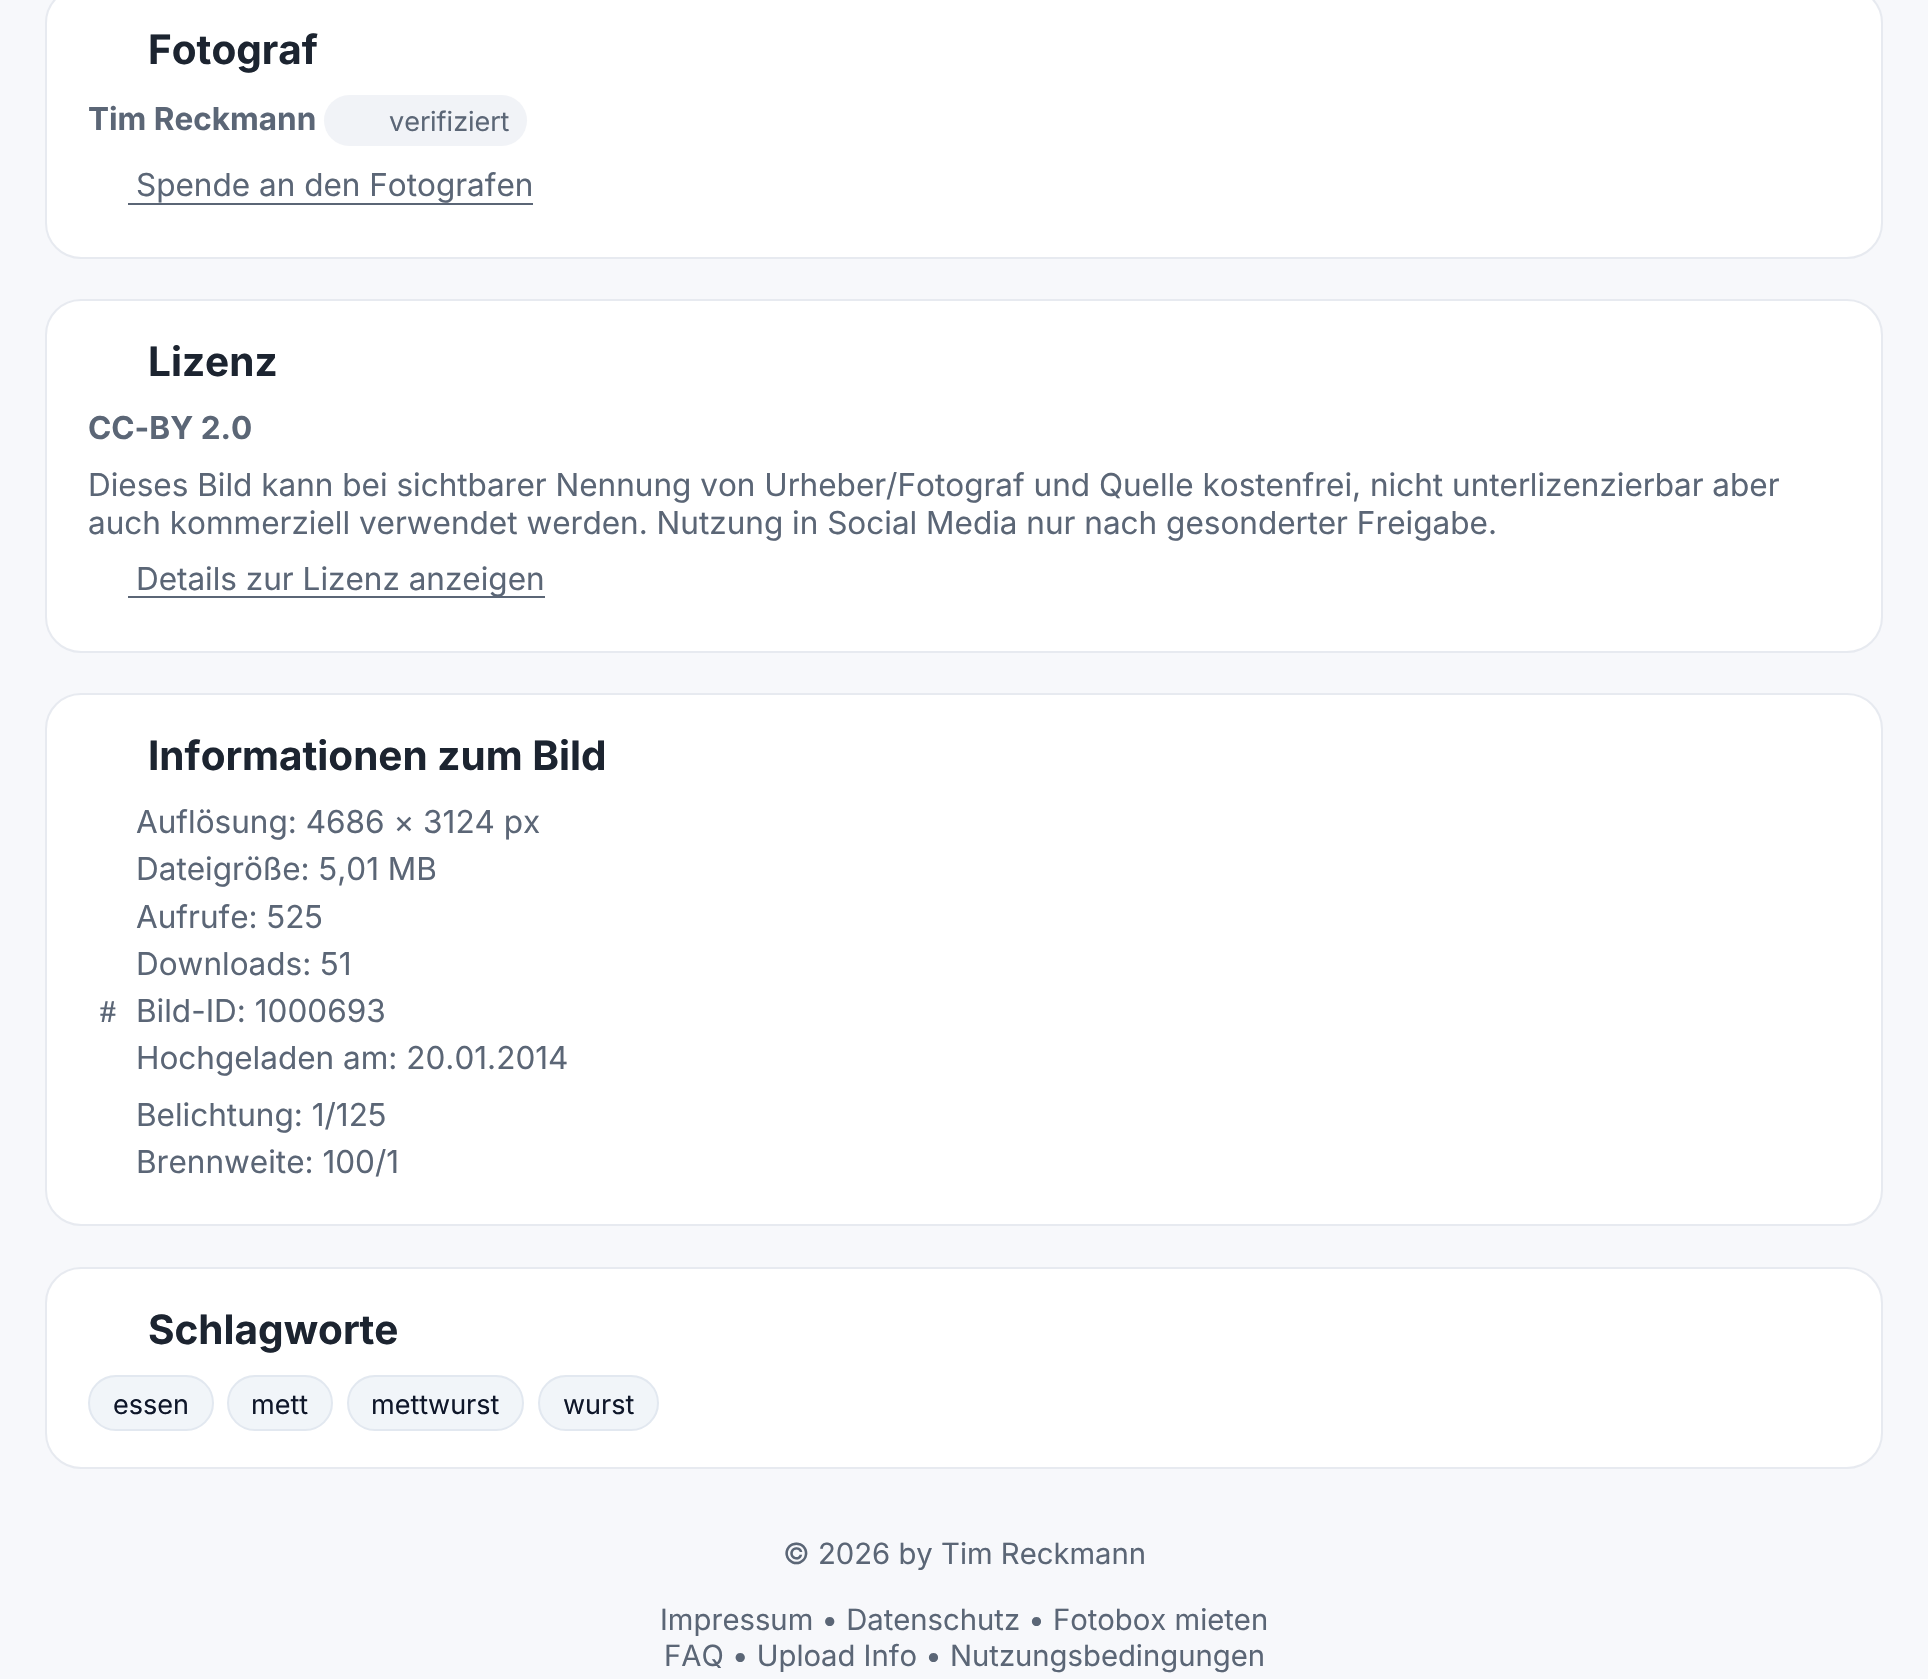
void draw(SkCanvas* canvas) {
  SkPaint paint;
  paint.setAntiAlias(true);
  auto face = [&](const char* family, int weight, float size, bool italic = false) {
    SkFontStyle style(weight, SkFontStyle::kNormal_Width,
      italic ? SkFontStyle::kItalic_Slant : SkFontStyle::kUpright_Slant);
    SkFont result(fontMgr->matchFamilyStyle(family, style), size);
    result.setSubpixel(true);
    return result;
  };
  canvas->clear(0xfff7f8fb);
  paint.setColor(0xffffffff);
  canvas->drawRoundRect(SkRect::MakeXYWH(46, -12, 1836, 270), 35, 35, paint);
  paint.setStroke(true);
  paint.setStrokeWidth(2);
  paint.setColor(0xffe7eaf0);
  canvas->drawRoundRect(SkRect::MakeXYWH(46, -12, 1836, 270), 35, 35, paint);
  paint.setStroke(false);
  paint.setColor(0xfff1f3f7);
  canvas->drawRoundRect(SkRect::MakeXYWH(324, 95, 203, 51), 25.5f, 25.5f, paint);
  paint.setColor(0xff5b6676);
  canvas->drawRect(SkRect::MakeXYWH(128, 203, 405, 2), paint);
  paint.setColor(0xffffffff);
  canvas->drawRoundRect(SkRect::MakeXYWH(46, 300, 1836, 352), 35, 35, paint);
  paint.setStroke(true);
  paint.setColor(0xffe7eaf0);
  canvas->drawRoundRect(SkRect::MakeXYWH(46, 300, 1836, 352), 35, 35, paint);
  paint.setStroke(false);
  paint.setColor(0xff5b6676);
  canvas->drawRect(SkRect::MakeXYWH(128, 596, 417, 2), paint);
  paint.setColor(0xffffffff);
  canvas->drawRoundRect(SkRect::MakeXYWH(46, 694, 1836, 531), 35, 35, paint);
  paint.setStroke(true);
  paint.setColor(0xffe7eaf0);
  canvas->drawRoundRect(SkRect::MakeXYWH(46, 694, 1836, 531), 35, 35, paint);
  paint.setStroke(false);
  paint.setColor(0xffffffff);
  canvas->drawRoundRect(SkRect::MakeXYWH(46, 1268, 1836, 200), 35, 35, paint);
  paint.setStroke(true);
  paint.setColor(0xffe7eaf0);
  canvas->drawRoundRect(SkRect::MakeXYWH(46, 1268, 1836, 200), 35, 35, paint);
  paint.setStroke(false);
  paint.setColor(0xfff1f5f9);
  canvas->drawRoundRect(SkRect::MakeXYWH(89, 1376, 124, 54), 27, 27, paint);
  paint.setStroke(true);
  paint.setColor(0xffe2e8f0);
  canvas->drawRoundRect(SkRect::MakeXYWH(89, 1376, 124, 54), 27, 27, paint);
  paint.setStroke(false);
  paint.setColor(0xfff1f5f9);
  canvas->drawRoundRect(SkRect::MakeXYWH(228, 1376, 104, 54), 27, 27, paint);
  paint.setStroke(true);
  paint.setColor(0xffe2e8f0);
  canvas->drawRoundRect(SkRect::MakeXYWH(228, 1376, 104, 54), 27, 27, paint);
  paint.setStroke(false);
  paint.setColor(0xfff1f5f9);
  canvas->drawRoundRect(SkRect::MakeXYWH(348, 1376, 175, 54), 27, 27, paint);
  paint.setStroke(true);
  paint.setColor(0xffe2e8f0);
  canvas->drawRoundRect(SkRect::MakeXYWH(348, 1376, 175, 54), 27, 27, paint);
  paint.setStroke(false);
  paint.setColor(0xfff1f5f9);
  canvas->drawRoundRect(SkRect::MakeXYWH(539, 1376, 119, 54), 27, 27, paint);
  paint.setStroke(true);
  paint.setColor(0xffe2e8f0);
  canvas->drawRoundRect(SkRect::MakeXYWH(539, 1376, 119, 54), 27, 27, paint);
  auto f0 = face("Inter", 700, 40.5f);
  paint.setStroke(false);
  paint.setColor(0xff1c2430);
  canvas->drawString("Fotograf", 148, 64, f0, paint);
  auto f1 = face("Inter", 700, 31.5f);
  paint.setColor(0xff5b6676);
  canvas->drawString("Tim Reckmann", 88, 130, f1, paint);
  auto f2 = face("Inter", 400, 27);
  canvas->drawString("verifiziert", 389, 131, f2, paint);
  auto f3 = face("Inter", 400, 31.5f);
  canvas->drawString("Spende an den Fotografen", 136, 196, f3, paint);
  paint.setColor(0xff1c2430);
  canvas->drawString("Lizenz", 148, 376, f0, paint);
  paint.setColor(0xff5b6676);
  canvas->drawString("CC-BY 2.0", 88, 439, f1, paint);
  {
    const struct { const char* s; float x, y; } items[] = {
      {"Dieses Bild kann bei sichtbarer Nennung von Urheber/Fotograf und Quelle kostenfrei, nicht unterlizenzierbar aber", 88, 496},
      {"auch kommerziell verwendet werden. Nutzung in Social Media nur nach gesonderter Freigabe.", 88, 534},
      {"Details zur Lizenz anzeigen", 136, 590},
    };
    for (auto [s, x, y] : items) {
      canvas->drawString(s, x, y, f3, paint);
    }
  }
  paint.setColor(0xff1c2430);
  canvas->drawString("Informationen zum Bild", 148, 770, f0, paint);
  paint.setColor(0xff5b6676);
  {
    const struct { const char* s; float x, y; } items[] = {
      {"Auflösung: 4686 × 3124 px", 136, 833},
      {"Dateigröße: 5,01 MB", 136, 880},
      {"Aufrufe: 525", 136, 928},
      {"Downloads: 51", 136, 975},
    };
    for (auto [s, x, y] : items) {
      canvas->drawString(s, x, y, f3, paint);
    }
  }
  auto f4 = face("Liberation Serif", 700, 31.5f);
  canvas->drawString("#", 100, 1022, f4, paint);
  {
    const struct { const char* s; float x, y; } items[] = {
      {"Bild-ID: 1000693", 136, 1022},
      {"Hochgeladen am: 20.01.2014", 136, 1069},
      {"Belichtung: 1/125", 136, 1126},
      {"Brennweite: 100/1", 136, 1173},
    };
    for (auto [s, x, y] : items) {
      canvas->drawString(s, x, y, f3, paint);
    }
  }
  paint.setColor(0xff1c2430);
  canvas->drawString("Schlagworte", 148, 1344, f0, paint);
  paint.setColor(0xff0f172a);
  {
    const struct { const char* s; float x, y; } items[] = {
      {"essen", 113, 1414},
      {"mett", 251, 1414},
      {"mettwurst", 371, 1414},
      {"wurst", 563, 1414},
    };
    for (auto [s, x, y] : items) {
      canvas->drawString(s, x, y, f2, paint);
    }
  }
  auto f5 = face("Inter", 400, 29.25f);
  paint.setColor(0xff5b6676);
  {
    const struct { const char* s; float x, y; } items[] = {
      {"© 2026 by Tim Reckmann", 783, 1564},
      {"Impressum • Datenschutz • Fotobox mieten", 660, 1630},
      {"FAQ • Upload Info • Nutzungsbedingungen", 664, 1666},
    };
    for (auto [s, x, y] : items) {
      canvas->drawString(s, x, y, f5, paint);
    }
  }
}
